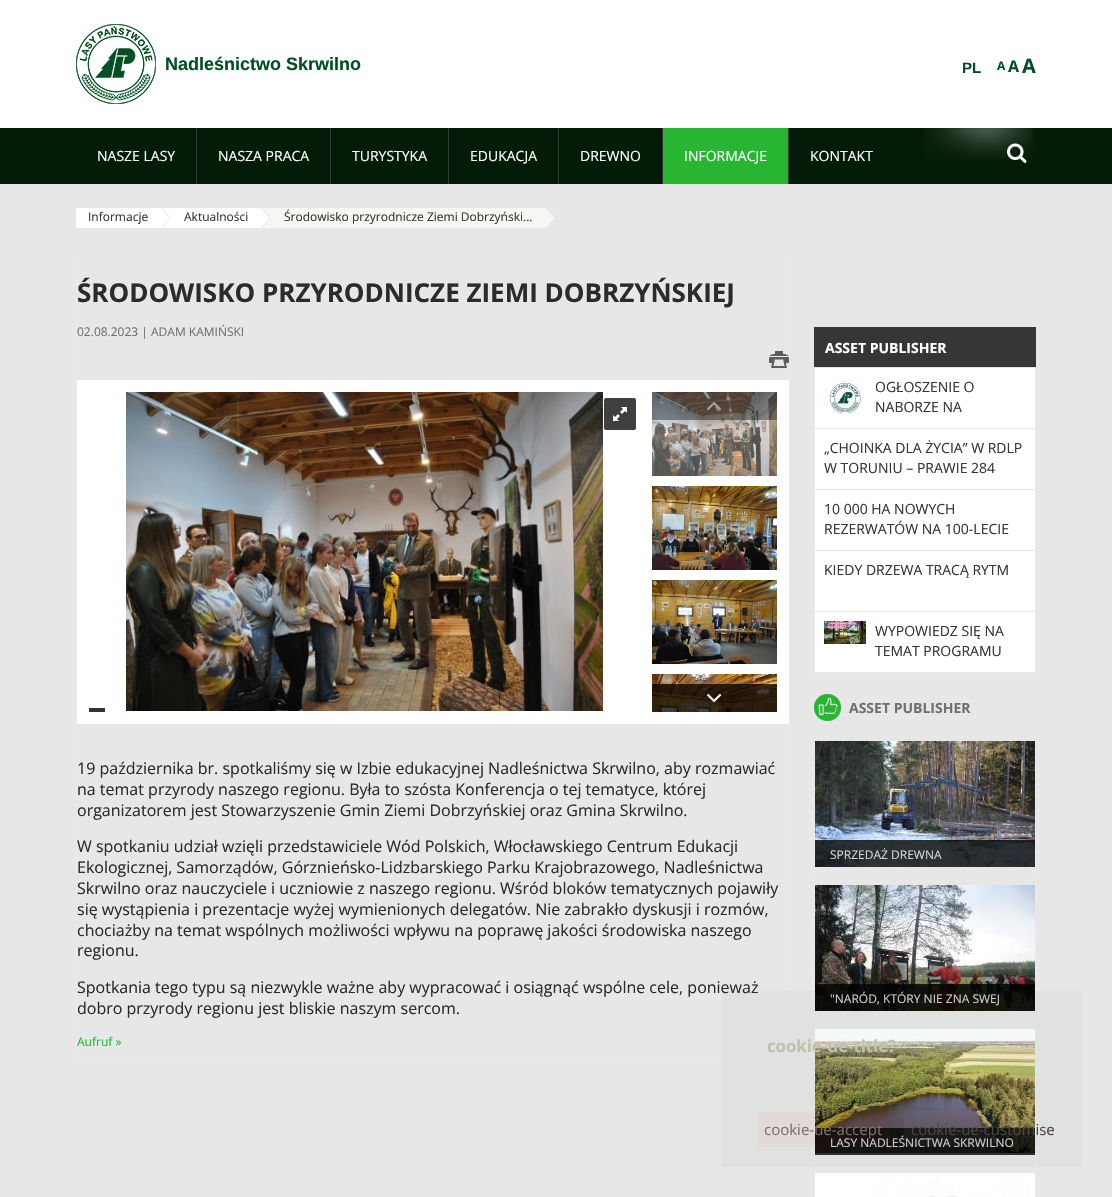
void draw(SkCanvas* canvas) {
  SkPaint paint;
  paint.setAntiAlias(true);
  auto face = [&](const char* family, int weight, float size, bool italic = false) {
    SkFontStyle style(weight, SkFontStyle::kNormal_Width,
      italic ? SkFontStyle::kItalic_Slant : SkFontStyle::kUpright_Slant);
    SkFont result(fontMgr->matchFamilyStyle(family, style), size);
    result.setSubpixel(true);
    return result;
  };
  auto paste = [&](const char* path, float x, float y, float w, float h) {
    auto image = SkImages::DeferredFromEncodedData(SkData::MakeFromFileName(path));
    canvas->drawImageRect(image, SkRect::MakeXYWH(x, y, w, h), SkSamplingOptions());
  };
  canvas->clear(0xffffffff);
  paste("img/1.png", 76, 24, 80, 80);
  paint.setColor(0xff031c07);
  canvas->drawRect(SkRect::MakeXYWH(0, 128, 1112, 56), paint);
  paste("img/2.png", 924, 128, 110, 32);
  {
    const struct { float x, y, w, h; SkColor color; } items[] = {
      {196, 128, 1, 56, 0xff363636},
      {330, 128, 1, 56, 0xff363636},
      {448, 128, 1, 56, 0xff363636},
      {558, 128, 1, 56, 0xff363636},
      {662, 128, 1, 56, 0xff363636},
      {788, 128, 1, 56, 0xff363636},
      {663, 128, 125, 56, 0xff28b532},
    };
    for (auto [x, y, w, h, color] : items) {
      paint.setColor(color);
      canvas->drawRect(SkRect::MakeXYWH(x, y, w, h), paint);
    }
  }
  paste("img/3.png", 1007, 143, 20, 20);
  paint.setColor(0xffe7e7e7);
  canvas->drawRect(SkRect::MakeXYWH(0, 184, 1112, 1013), paint);
  paint.setColor(0xffffffff);
  canvas->drawRect(SkRect::MakeXYWH(76, 208, 184, 20), paint);
  paste("img/4.png", 161, 208, 9, 20);
  paint.setColor(0xfff8f6f2);
  canvas->drawRect(SkRect::MakeXYWH(260, 208, 285, 20), paint);
  paste("img/5.png", 260, 208, 10, 20);
  paste("img/6.png", 545, 208, 10, 20);
  {
    const struct { float x, y, w, h; SkColor color; } items[] = {
      {789, 258, 1, 805, 0xffeaeaea},
      {76, 1062, 714, 1, 0xffeaeaea},
      {76, 258, 1, 805, 0xffeaeaea},
    };
    for (auto [x, y, w, h, color] : items) {
      paint.setColor(color);
      canvas->drawRect(SkRect::MakeXYWH(x, y, w, h), paint);
    }
  }
  paste("img/7.png", 769, 351, 20, 17);
  paint.setColor(0xffffffff);
  canvas->drawRect(SkRect::MakeXYWH(77, 380, 712, 344), paint);
  paint.setColor(0xff333333);
  canvas->drawRect(SkRect::MakeXYWH(89, 708, 16, 4), paint);
  paste("img/8.png", 126, 392, 477, 319);
  paint.setColor(0xff404040);
  canvas->drawRoundRect(SkRect::MakeXYWH(604, 398, 32, 32), 2, 2, paint);
  paste("img/9.png", 612, 406, 16, 16);
  paste("img/10.png", 652, 392, 125, 84);
  paste("img/11.png", 652, 486, 125, 84);
  paste("img/12.png", 652, 580, 125, 84);
  paste("img/13.png", 652, 674, 125, 38);
  paint.setColor(0x61000000);
  canvas->drawRect(SkRect::MakeXYWH(652, 392, 125, 28), paint);
  paste("img/14.png", 707, 402, 14, 8);
  paint.setColor(0xbf000000);
  canvas->drawRect(SkRect::MakeXYWH(652, 684, 125, 28), paint);
  paste("img/15.png", 707, 694, 14, 8);
  {
    const struct { float x, y, w, h; SkColor color; } items[] = {
      {814, 327, 222, 40, 0xff363636},
      {1035, 367, 1, 306, 0xffeaeaea},
      {814, 672, 222, 1, 0xffeaeaea},
      {814, 367, 1, 306, 0xffeaeaea},
      {815, 368, 220, 60, 0xffffffff},
    };
    for (auto [x, y, w, h, color] : items) {
      paint.setColor(color);
      canvas->drawRect(SkRect::MakeXYWH(x, y, w, h), paint);
    }
  }
  paste("img/16.png", 824, 377, 40, 36);
  {
    const struct { float x, y, w, h; SkColor color; } items[] = {
      {815, 429, 220, 60, 0xffffffff},
      {815, 490, 220, 60, 0xffffffff},
      {815, 551, 220, 60, 0xffffffff},
      {815, 612, 220, 60, 0xffffffff},
    };
    for (auto [x, y, w, h, color] : items) {
      paint.setColor(color);
      canvas->drawRect(SkRect::MakeXYWH(x, y, w, h), paint);
    }
  }
  paste("img/17.png", 824, 621, 42, 23);
  paste("img/18.png", 814, 694, 27, 27);
  paint.setColor(0xffeaeaea);
  canvas->drawRect(SkRect::MakeXYWH(1035, 741, 1, 456), paint);
  canvas->drawRect(SkRect::MakeXYWH(814, 741, 1, 456), paint);
  paste("img/19.png", 815, 741, 220, 126);
  paint.setColor(0xcc000000);
  canvas->drawRect(SkRect::MakeXYWH(815, 840, 220, 27), paint);
  paste("img/20.png", 815, 885, 220, 126);
  canvas->drawRect(SkRect::MakeXYWH(815, 984, 220, 27), paint);
  paste("img/21.png", 815, 1029, 220, 124);
  canvas->drawRect(SkRect::MakeXYWH(815, 1128, 220, 27), paint);
  paste("img/22.png", 815, 1173, 220, 24);
  {
    const struct { float x, y, w, h; SkColor color; } items[] = {
      {722, 991, 360, 176, 0x08005023},
      {757, 1111, 132, 36, 0x08ff0000},
      {904, 1111, 131, 36, 0x08ffffff},
    };
    for (auto [x, y, w, h, color] : items) {
      paint.setColor(color);
      canvas->drawRect(SkRect::MakeXYWH(x, y, w, h), paint);
    }
  }
  auto f0 = face("Liberation Sans", 700, 18);
  paint.setColor(0xff005023);
  canvas->drawString("Nadleśnictwo Skrwilno", 165, 70, f0, paint);
  auto f1 = face("Liberation Sans", 700, 15);
  canvas->drawString("PL", 962, 73, f1, paint);
  auto f2 = face("Open Sans", 700, 12);
  canvas->drawString("A", 997, 70, f2, paint);
  auto f3 = face("Open Sans", 700, 16);
  canvas->drawString("A", 1008, 72, f3, paint);
  auto f4 = face("Open Sans", 700, 20);
  canvas->drawString("A", 1022, 73, f4, paint);
  auto f5 = face("Open Sans", 400, 14);
  paint.setColor(0xffffffff);
  {
    const struct { const char* s; float x, y; } items[] = {
      {"NASZE LASY", 97, 161},
      {"NASZA PRACA", 218, 161},
      {"TURYSTYKA", 352, 161},
      {"EDUKACJA", 470, 161},
      {"DREWNO", 580, 161},
      {"INFORMACJE", 684, 161},
      {"KONTAKT", 810, 161},
    };
    for (auto [s, x, y] : items) {
      canvas->drawString(s, x, y, f5, paint);
    }
  }
  auto f6 = face("Open Sans", 400, 12);
  paint.setColor(0xff363636);
  {
    const struct { const char* s; float x, y; } items[] = {
      {"Informacje", 88, 221},
      {"Aktualności", 184, 221},
      {"Środowisko przyrodnicze Ziemi Dobrzyński...", 284, 221},
    };
    for (auto [s, x, y] : items) {
      canvas->drawString(s, x, y, f6, paint);
    }
  }
  auto f7 = face("Open Sans", 700, 26);
  paint.setColor(0xff2b2b2b);
  canvas->drawString("ŚRODOWISKO PRZYRODNICZE ZIEMI DOBRZYŃSKIEJ", 77, 302, f7, paint);
  paint.setColor(0xff707070);
  canvas->drawString("02.08.2023 | ADAM KAMIŃSKI", 77, 336, f6, paint);
  auto f8 = face("Open Sans", 400, 16);
  paint.setColor(0xff2b2b2b);
  {
    const struct { const char* s; float x, y; } items[] = {
      {"19 października br. spotkaliśmy się w Izbie edukacyjnej Nadleśnictwa Skrwilno, aby rozmawiać", 77, 774},
      {"na temat przyrody naszego regionu. Była to szósta Konferencja o tej tematyce, której", 77, 795},
      {"organizatorem jest Stowarzyszenie Gmin Ziemi Dobrzyńskiej oraz Gmina Skrwilno.", 77, 816},
      {"W spotkaniu udział wzięli przedstawiciele Wód Polskich, Włocławskiego Centrum Edukacji", 77, 852},
      {"Ekologicznej, Samorządów, Górznieńsko-Lidzbarskiego Parku Krajobrazowego, Nadleśnictwa", 77, 873},
      {"Skrwilno oraz nauczyciele i uczniowie z naszego regionu. Wśród bloków tematycznych pojawiły", 77, 894},
      {"się wystąpienia i prezentacje wyżej wymienionych delegatów. Nie zabrakło dyskusji i rozmów,", 77, 915},
      {"chociażby na temat wspólnych możliwości wpływu na poprawę jakości środowiska naszego", 77, 936},
      {"regionu.", 77, 956},
      {"Spotkania tego typu są niezwykle ważne aby wypracować i osiągnąć wspólne cele, ponieważ", 77, 993},
      {"dobro przyrody regionu jest bliskie naszym sercom.", 77, 1014},
    };
    for (auto [s, x, y] : items) {
      canvas->drawString(s, x, y, f8, paint);
    }
  }
  paint.setColor(0xff28b532);
  canvas->drawString("Aufruf »", 77, 1046, f6, paint);
  auto f9 = face("Open Sans", 700, 14);
  paint.setColor(0xffffffff);
  canvas->drawString("ASSET PUBLISHER", 825, 353, f9, paint);
  paint.setColor(0xff363636);
  {
    const struct { const char* s; float x, y; } items[] = {
      {"OGŁOSZENIE O", 875, 392},
      {"NABORZE NA", 875, 412},
      {"„CHOINKA DLA ŻYCIA” W RDLP", 824, 453},
      {"W TORUNIU – PRAWIE 284", 824, 473},
      {"10 000 HA NOWYCH", 824, 514},
      {"REZERWATÓW NA 100-LECIE", 824, 534},
      {"KIEDY DRZEWA TRACĄ RYTM", 824, 575},
      {"WYPOWIEDZ SIĘ NA", 875, 636},
      {"TEMAT PROGRAMU", 875, 656},
    };
    for (auto [s, x, y] : items) {
      canvas->drawString(s, x, y, f5, paint);
    }
  }
  paint.setColor(0xff707070);
  canvas->drawString("ASSET PUBLISHER", 849, 713, f9, paint);
  paint.setColor(0xffd4d5d6);
  canvas->drawString("SPRZEDAŻ DREWNA", 830, 859, f6, paint);
  paint.setColor(0xffcfcece);
  canvas->drawString("\"NARÓD, KTÓRY NIE ZNA SWEJ", 830, 1003, f6, paint);
  canvas->drawString("LASY NADLEŚNICTWA SKRWILNO", 830, 1147, f6, paint);
  auto f10 = face("Open Sans", 700, 16.75f);
  paint.setColor(0xffbfc1ad);
  canvas->drawString("cookie-ue-title?", 767, 1052, f10, paint);
  auto f11 = face("Open Sans", 400, 15);
  paint.setColor(0xff7b7270);
  canvas->drawString("cookie-ue-accept", 764, 1135, f11, paint);
  paint.setColor(0xff4f4542);
  canvas->drawString("cookie-ue-customise", 911, 1135, f11, paint);
}
